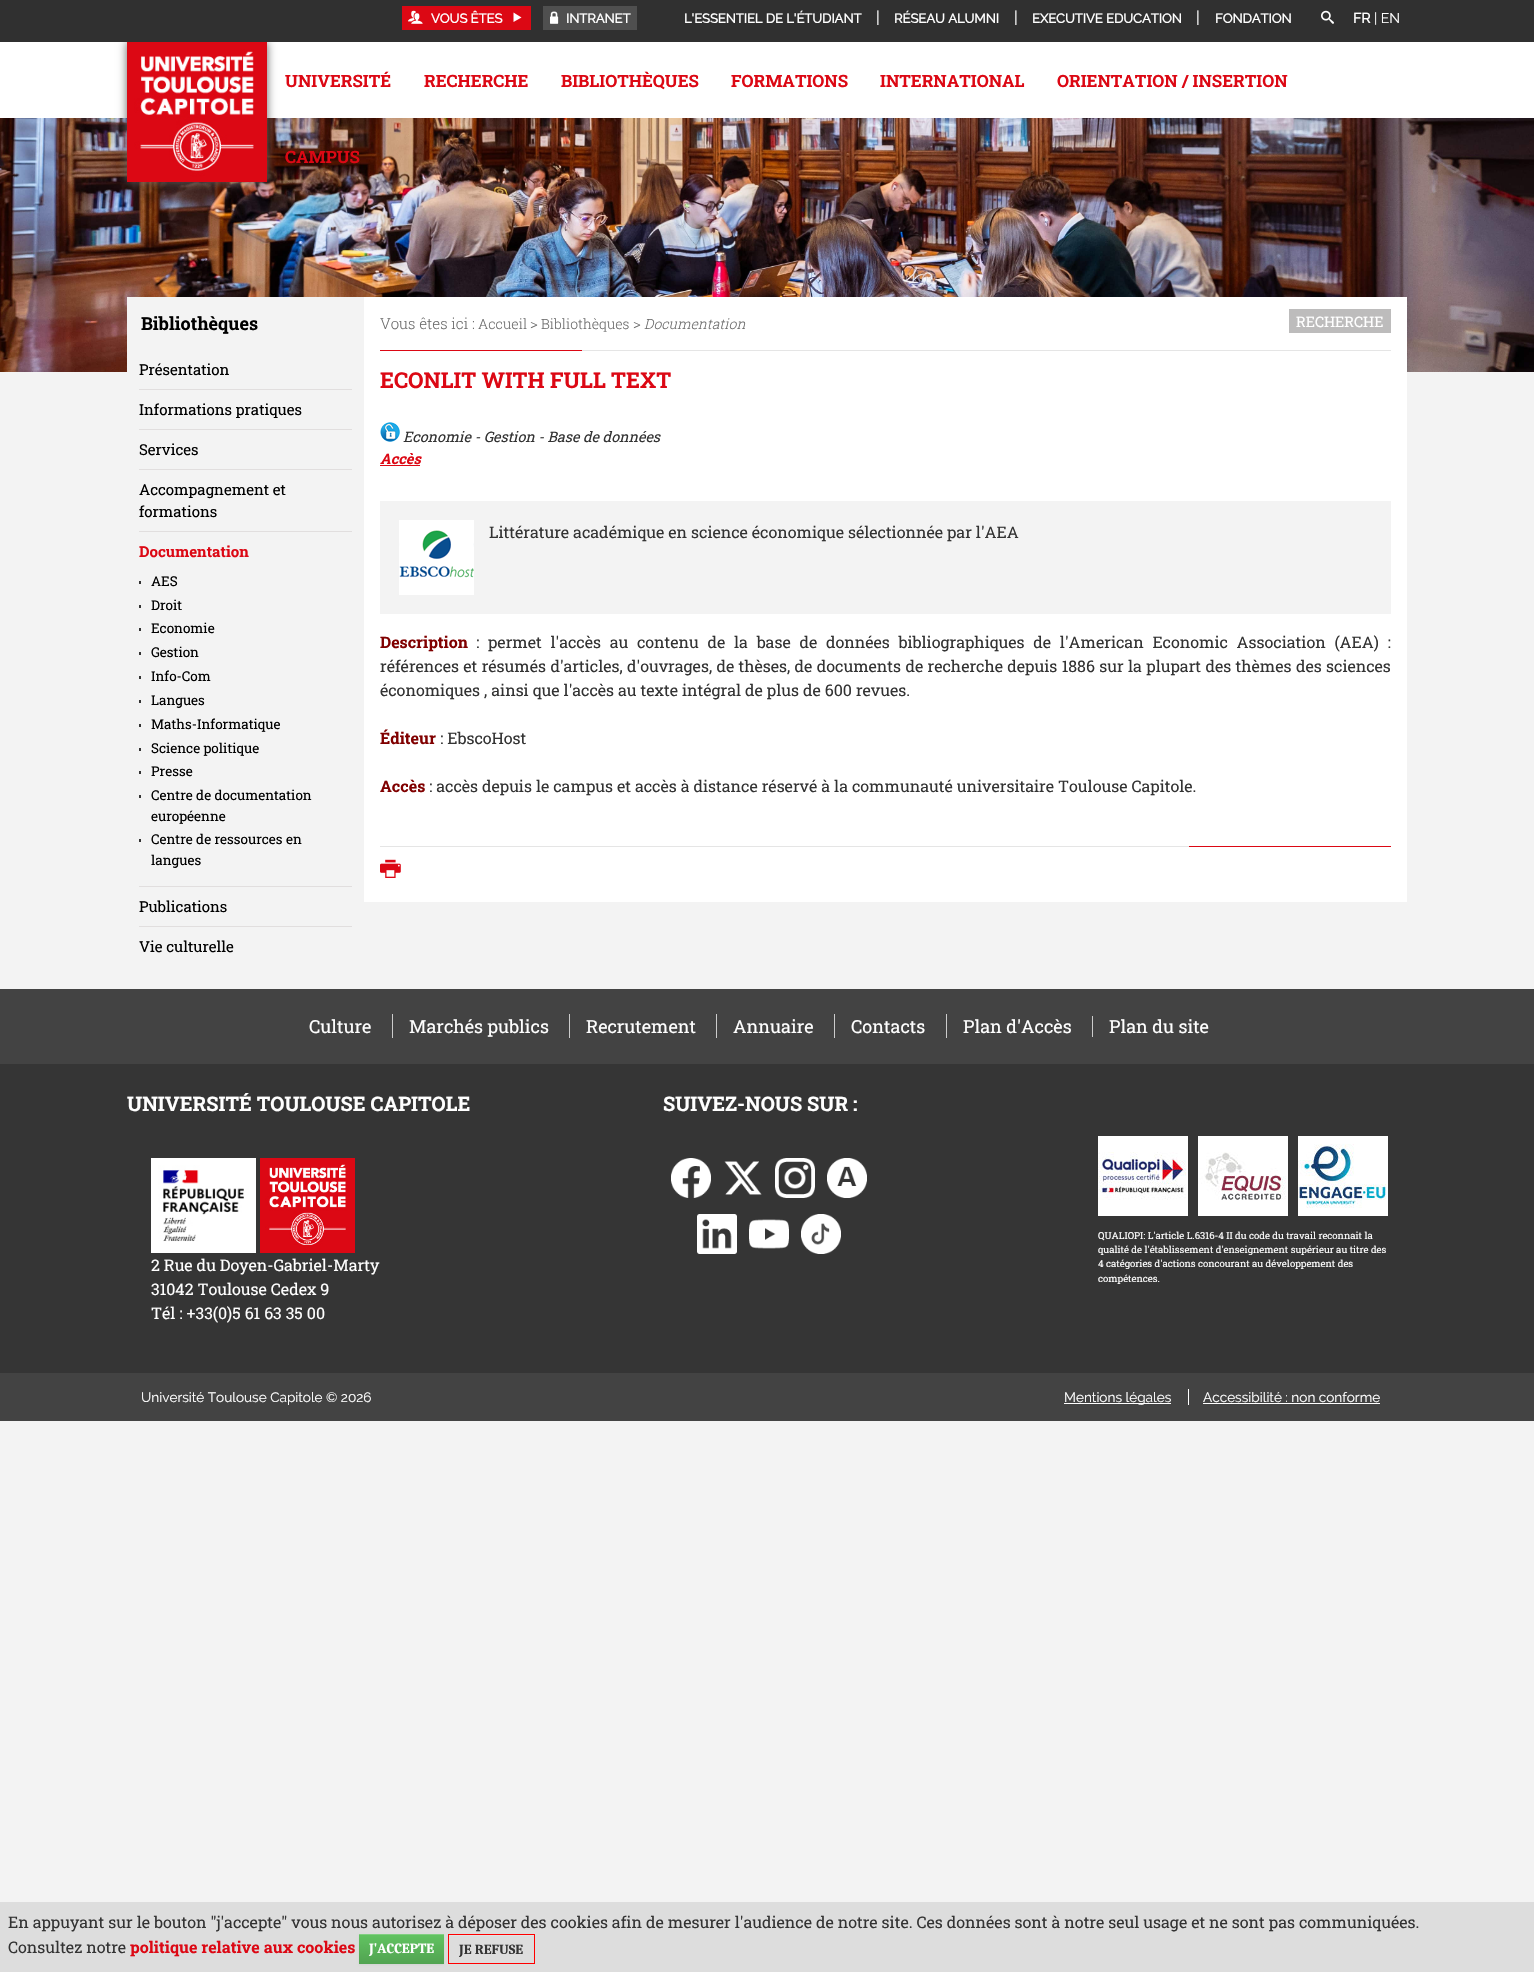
void draw(SkCanvas* canvas) {
  SkPaint paint;
  paint.setAntiAlias(true);
  auto face = [&](const char* family, int weight, float size, bool italic = false) {
    SkFontStyle style(weight, SkFontStyle::kNormal_Width,
      italic ? SkFontStyle::kItalic_Slant : SkFontStyle::kUpright_Slant);
    SkFont result(fontMgr->matchFamilyStyle(family, style), size);
    result.setSubpixel(true);
    return result;
  };
  auto writeSpaced = [&](const char* s, float x, float y, const SkFont& font, const SkPaint& ink, float letter, float word) {
    std::vector<SkGlyphID> glyphs(font.countText(s, strlen(s), SkTextEncoding::kUTF8));
    std::vector<float> xs(glyphs.size());
    font.textToGlyphs(s, strlen(s), SkTextEncoding::kUTF8, glyphs);
    font.getXPos(glyphs, xs, x);
    float extra = 0;
    for (size_t i = 0; i < glyphs.size(); i++) {
      xs[i] += extra;
      extra += letter + word * (glyphs[i] == font.unicharToGlyph(' '));
    }
    canvas->drawTextBlob(SkTextBlob::MakeFromPosHGlyphs(glyphs, xs, y, font), 0, 0, ink);
  };
  auto paste = [&](const char* path, float x, float y, float w, float h) {
    auto image = SkImages::DeferredFromEncodedData(SkData::MakeFromFileName(path));
    canvas->drawImageRect(image, SkRect::MakeXYWH(x, y, w, h), SkSamplingOptions());
  };
  auto shape = [&](const char* data, bool evenOdd = false) {
    SkPath result = *SkParsePath::FromSVGString(data);
    if (evenOdd) result.setFillType(SkPathFillType::kEvenOdd);
    return result;
  };
  canvas->clear(0xfff3f3f3);
  paint.setColor(0xffffffff);
  canvas->drawRect(SkRect::MakeXYWH(0, 42, 1534, 76), paint);
  paste("img/5.png", 0, 118, 1534, 254);
  paint.setColor(0xff656565);
  paint.setMaskFilter(SkMaskFilter::MakeBlur(kNormal_SkBlurStyle, 4.5f));
  canvas->drawRect(SkRect::MakeXYWH(127, 42, 140, 140), paint);
  paint.setMaskFilter(nullptr);
  paint.setColor(0xff303030);
  canvas->drawRect(SkRect::MakeXYWH(0, 0, 1534, 42), paint);
  paint.setColor(0xffdc0814);
  canvas->drawRect(SkRect::MakeXYWH(402, 6, 129, 24), paint);
  paste("img/1.png", 408, 10, 15, 14);
  paint.setColor(0xffffffff);
  canvas->drawPath(shape("M513.5 12.5L521.5 17.5L513.5 22Z"), paint);
  paint.setColor(0xff4f4f4f);
  canvas->drawRect(SkRect::MakeXYWH(543, 6, 94, 24), paint);
  paste("img/2.png", 550, 11, 9, 13);
  paste("img/3.png", 1321, 10, 13, 14);
  paste("img/4.png", 127, 42, 140, 140);
  {
    const struct { float x, y, w, h; SkColor color; } items[] = {
      {127, 297, 237, 75, 0xfff3f3f3},
      {139, 389, 213, 1, 0xffe1dede},
      {139, 429, 213, 1, 0xffe1dede},
      {139, 469, 213, 1, 0xffe1dede},
      {139, 531, 213, 1, 0xffe1dede},
      {139, 886, 213, 1, 0xffe1dede},
      {139, 581, 2, 3, 0xff333333},
      {139, 605, 2, 3, 0xff333333},
      {139, 628, 2, 3, 0xff333333},
      {139, 652, 2, 3, 0xff333333},
      {139, 676, 2, 3, 0xff333333},
      {139, 700, 2, 3, 0xff333333},
      {139, 724, 2, 3, 0xff333333},
      {139, 748, 2, 3, 0xff333333},
      {139, 771, 2, 3, 0xff333333},
      {139, 795, 2, 3, 0xff333333},
      {139, 839, 2, 3, 0xff333333},
      {139, 926, 213, 1, 0xffe1dede},
      {364, 297, 1043, 605, 0xffffffff},
      {1289, 309, 102, 24, 0xffbdbcbc},
      {582, 350, 809, 1, 0xffe5e5e5},
      {380, 350, 202, 1, 0xffdc0814},
    };
    for (auto [x, y, w, h, color] : items) {
      paint.setColor(color);
      canvas->drawRect(SkRect::MakeXYWH(x, y, w, h), paint);
    }
  }
  paste("img/6.png", 380, 422, 20, 20);
  canvas->drawRect(SkRect::MakeXYWH(380, 465, 40, 1), paint);
  paint.setColor(0xfff3f3f3);
  canvas->drawRect(SkRect::MakeXYWH(380, 501, 1011, 113), paint);
  paste("img/7.png", 399, 520, 75, 75);
  paint.setColor(0xffdc0814);
  canvas->drawRect(SkRect::MakeXYWH(1189, 846, 202, 1), paint);
  paint.setColor(0xffe5e5e5);
  canvas->drawRect(SkRect::MakeXYWH(380, 846, 809, 1), paint);
  paste("img/8.png", 380, 859, 21, 19);
  {
    const struct { float x, y, w, h; SkColor color; } items[] = {
      {0, 989, 1534, 75, 0xff434343},
      {392, 1014, 1, 24, 0xffcccccc},
      {569, 1014, 1, 24, 0xffcccccc},
      {716, 1014, 1, 24, 0xffcccccc},
      {834, 1014, 1, 24, 0xffcccccc},
      {946, 1014, 1, 24, 0xffcccccc},
      {1092, 1016, 1, 21, 0xffcccccc},
      {0, 1064, 1534, 309, 0xff353535},
    };
    for (auto [x, y, w, h, color] : items) {
      paint.setColor(color);
      canvas->drawRect(SkRect::MakeXYWH(x, y, w, h), paint);
    }
  }
  paste("img/9.png", 151, 1158, 105, 95);
  paste("img/10.png", 260, 1158, 95, 95);
  paste("img/11.png", 671, 1158, 40, 40);
  paste("img/12.png", 724, 1161, 38, 34);
  paste("img/13.png", 775, 1158, 40, 40);
  paste("img/14.png", 827, 1158, 40, 40);
  paste("img/15.png", 697, 1214, 40, 40);
  paste("img/16.png", 749, 1219, 40, 30);
  paste("img/17.png", 801, 1214, 40, 40);
  paste("img/18.png", 1098, 1136, 90, 80);
  paste("img/19.png", 1198, 1136, 90, 80);
  paste("img/20.png", 1298, 1136, 90, 80);
  {
    const struct { float x, y, w, h; SkColor color; } items[] = {
      {0, 1373, 1534, 48, 0xff434343},
      {1064, 1403, 107, 1, 0xffffffff},
      {1188, 1389, 1, 16, 0xffffffff},
      {1203, 1403, 177, 1, 0xffffffff},
      {0, 1902, 1534, 70, 0xffdddddd},
    };
    for (auto [x, y, w, h, color] : items) {
      paint.setColor(color);
      canvas->drawRect(SkRect::MakeXYWH(x, y, w, h), paint);
    }
  }
  paint.setColor(0x0d000000);
  paint.setMaskFilter(SkMaskFilter::MakeBlur(kNormal_SkBlurStyle, 1));
  canvas->drawRect(SkRect::MakeXYWH(359, 1935, 85, 30), paint);
  paint.setMaskFilter(nullptr);
  {
    const SkColor colors[] = {0xff62c462, 0xff51a351};
    const float stops[] = {0, 1};
    const SkPoint ends[] = {{402, 1934}, {402, 1964}};
    paint.setShader(SkGradientShader::MakeLinear(ends, colors, stops, 2, SkTileMode::kClamp));
    paint.setAlpha(255);
  }
  canvas->drawRect(SkRect::MakeXYWH(359, 1935, 85, 29), paint);
  paint.setShader(nullptr);
  paint.setColor(0xff81cf81);
  canvas->drawRect(SkRect::MakeXYWH(359, 1934, 85, 1), paint);
  paint.setColor(0xffe4e4e4);
  canvas->drawRect(SkRect::MakeXYWH(449, 1935, 85, 1), paint);
  paint.setStroke(true);
  paint.setStrokeWidth(1);
  paint.setColor(0xffff0000);
  canvas->drawRect(SkRect::MakeXYWH(448.5f, 1934.5f, 86, 29), paint);
  auto f0 = face("Raleway", 700, 13);
  paint.setStroke(false);
  paint.setColor(0xffffffff);
  {
    const struct { const char* s; float x, y; } items[] = {
      {"VOUS ÊTES", 431, 23},
      {"INTRANET", 566, 23},
      {"L'ESSENTIEL DE L'ÉTUDIANT", 684, 23},
    };
    for (auto [s, x, y] : items) {
      canvas->drawString(s, x, y, f0, paint);
    }
  }
  auto f1 = face("Raleway", 400, 16);
  canvas->drawString("|", 876, 23, f1, paint);
  canvas->drawString("RÉSEAU ALUMNI", 894, 23, f0, paint);
  canvas->drawString("|", 1014, 23, f1, paint);
  canvas->drawString("EXECUTIVE EDUCATION", 1032, 23, f0, paint);
  canvas->drawString("|", 1196, 23, f1, paint);
  canvas->drawString("FONDATION", 1215, 23, f0, paint);
  auto f2 = face("Raleway", 700, 14);
  canvas->drawString("FR", 1353, 23, f2, paint);
  auto f3 = face("Raleway", 400, 14);
  canvas->drawString("| EN", 1374, 23, f3, paint);
  auto f4 = face("Roboto Slab", 700, 17);
  paint.setColor(0xffdc0814);
  {
    const struct { const char* s; float x, y; } items[] = {
      {"UNIVERSITÉ", 285, 87},
      {"RECHERCHE", 424, 87},
      {"BIBLIOTHÈQUES", 561, 87},
      {"FORMATIONS", 731, 87},
      {"INTERNATIONAL", 880, 87},
      {"ORIENTATION / INSERTION", 1057, 87},
      {"CAMPUS", 285, 163},
    };
    for (auto [s, x, y] : items) {
      canvas->drawString(s, x, y, f4, paint);
    }
  }
  auto f5 = face("Roboto Slab", 700, 18);
  paint.setColor(0xff000000);
  canvas->drawString("Bibliothèques", 141, 330, f5, paint);
  auto f6 = face("Roboto Slab", 400, 15);
  {
    const struct { const char* s; float x, y; } items[] = {
      {"Présentation", 139, 375},
      {"Informations pratiques", 139, 415},
      {"Services", 139, 455},
      {"Accompagnement et", 139, 495},
      {"formations", 139, 517},
    };
    for (auto [s, x, y] : items) {
      canvas->drawString(s, x, y, f6, paint);
    }
  }
  auto f7 = face("Roboto Slab", 700, 15);
  paint.setColor(0xffdc0814);
  canvas->drawString("Documentation", 139, 557, f7, paint);
  auto f8 = face("Roboto Slab", 400, 13.5f);
  paint.setColor(0xff000000);
  {
    const struct { const char* s; float x, y; } items[] = {
      {"AES", 151, 586},
      {"Droit", 151, 610},
      {"Economie", 151, 633},
      {"Gestion", 151, 657},
      {"Info-Com", 151, 681},
      {"Langues", 151, 705},
      {"Maths-Informatique", 151, 729},
      {"Science politique", 151, 753},
      {"Presse", 151, 776},
      {"Centre de documentation", 151, 800},
      {"européenne", 151, 821},
      {"Centre de ressources en", 151, 844},
      {"langues", 151, 865},
    };
    for (auto [s, x, y] : items) {
      canvas->drawString(s, x, y, f8, paint);
    }
  }
  canvas->drawString("Publications", 139, 912, f6, paint);
  canvas->drawString("Vie culturelle", 139, 952, f6, paint);
  auto f9 = face("Roboto Slab", 300, 15);
  paint.setColor(0xff6c6c6c);
  canvas->drawString("Vous êtes ici :", 380, 329, f9, paint);
  auto f10 = face("Roboto Slab", 300, 14);
  canvas->drawString("Accueil", 478, 329, f10, paint);
  canvas->drawString(">", 530, 329, f9, paint);
  canvas->drawString("Bibliothèques", 541, 329, f10, paint);
  canvas->drawString(">", 633, 329, f9, paint);
  auto f11 = face("Roboto Slab", 300, 14, true);
  canvas->drawString("Documentation", 644, 329, f11, paint);
  auto f12 = face("Roboto Slab", 400, 14.4f);
  paint.setColor(0xffffffff);
  canvas->drawString("RECHERCHE", 1296, 327, f12, paint);
  auto f13 = face("Roboto Slab", 700, 21.9f);
  paint.setColor(0xffdc0814);
  canvas->drawString("ECONLIT WITH FULL TEXT", 380, 388, f13, paint);
  auto f14 = face("Roboto Slab", 400, 14.4f, true);
  paint.setColor(0xff333333);
  canvas->drawString("Economie - Gestion - Base de données", 403, 442, f14, paint);
  auto f15 = face("Roboto Slab", 700, 14.4f, true);
  paint.setColor(0xffdc0814);
  canvas->drawString("Accès", 380, 464, f15, paint);
  auto f16 = face("Roboto Slab", 400, 16);
  paint.setColor(0xff333333);
  canvas->drawString("Littérature académique en science économique sélectionnée par l'AEA", 489, 538, f16, paint);
  auto f17 = face("Roboto Slab", 700, 16);
  paint.setColor(0xff800000);
  canvas->drawString("Description", 380, 648, f17, paint);
  paint.setColor(0xff333333);
  writeSpaced(": permet l'accès au contenu de la base de données bibliographiques de l'American Economic Association (AEA) :", 476, 648, f16, paint, 0, 4.75f);
  writeSpaced("références et résumés d'articles, d'ouvrages, de thèses, de documents de recherche depuis 1886 sur la plupart des thèmes des sciences", 380, 672, f16, paint, 0, 0.4f);
  canvas->drawString("économiques , ainsi que l'accès au texte intégral de plus de 600 revues.", 380, 696, f16, paint);
  paint.setColor(0xff800000);
  canvas->drawString("Éditeur", 380, 744, f17, paint);
  paint.setColor(0xff333333);
  canvas->drawString(": EbscoHost", 440, 744, f16, paint);
  paint.setColor(0xff800000);
  canvas->drawString("Accès", 380, 792, f17, paint);
  paint.setColor(0xff333333);
  canvas->drawString(": accès depuis le campus et accès à distance réservé à la communauté universitaire Toulouse Capitole.", 429, 792, f16, paint);
  auto f18 = face("Roboto Slab", 400, 18);
  paint.setColor(0xffffffff);
  {
    const struct { const char* s; float x, y; } items[] = {
      {"Culture", 309, 1033},
      {"Marchés publics", 409, 1033},
      {"Recrutement", 586, 1033},
      {"Annuaire", 733, 1033},
      {"Contacts", 851, 1033},
      {"Plan d'Accès", 963, 1033},
      {"Plan du site", 1109, 1033},
    };
    for (auto [s, x, y] : items) {
      canvas->drawString(s, x, y, f18, paint);
    }
  }
  auto f19 = face("Roboto Slab", 700, 20);
  canvas->drawString("UNIVERSITÉ TOULOUSE CAPITOLE", 127, 1111, f19, paint);
  {
    const struct { const char* s; float x, y; } items[] = {
      {"2 Rue du Doyen-Gabriel-Marty", 151, 1271},
      {"31042 Toulouse Cedex 9", 151, 1295},
      {"Tél : +33(0)5 61 63 35 00", 151, 1319},
    };
    for (auto [s, x, y] : items) {
      canvas->drawString(s, x, y, f16, paint);
    }
  }
  canvas->drawString("SUIVEZ-NOUS SUR :", 663, 1111, f19, paint);
  auto f20 = face("Roboto Slab", 400, 9.6f);
  {
    const struct { const char* s; float x, y; } items[] = {
      {"QUALIOPI: L'article L.6316-4 II du code du travail reconnait la", 1098, 1239},
      {"qualité de l'établissement d'enseignement supérieur au titre des", 1098, 1253},
      {"4 catégories d'actions concourant au développement des", 1098, 1267},
      {"compétences.", 1098, 1282},
    };
    for (auto [s, x, y] : items) {
      canvas->drawString(s, x, y, f20, paint);
    }
  }
  auto f21 = face("Raleway", 400, 13.6f);
  {
    const struct { const char* s; float x, y; } items[] = {
      {"Université Toulouse Capitole © 2026", 141, 1402},
      {"Mentions légales", 1064, 1402},
      {"Accessibilité : non conforme", 1203, 1402},
    };
    for (auto [s, x, y] : items) {
      canvas->drawString(s, x, y, f21, paint);
    }
  }
  paint.setColor(0xff333333);
  canvas->drawString("En appuyant sur le bouton \"j'accepte\" vous nous autorisez à déposer des cookies afin de mesurer l'audience de notre site. Ces données sont à notre seul usage et ne sont pas communiquées.", 8, 1928, f16, paint);
  canvas->drawString("Consultez notre", 8, 1953, f16, paint);
  paint.setColor(0xffdc0814);
  canvas->drawString("politique relative aux cookies", 130, 1953, f17, paint);
  auto f22 = face("Caladea", 700, 14);
  paint.setColor(0xffffffff);
  canvas->drawString("J'ACCEPTE", 369, 1953, f22, paint);
  paint.setColor(0xff333333);
  canvas->drawString("JE REFUSE", 459, 1954, f22, paint);
}
